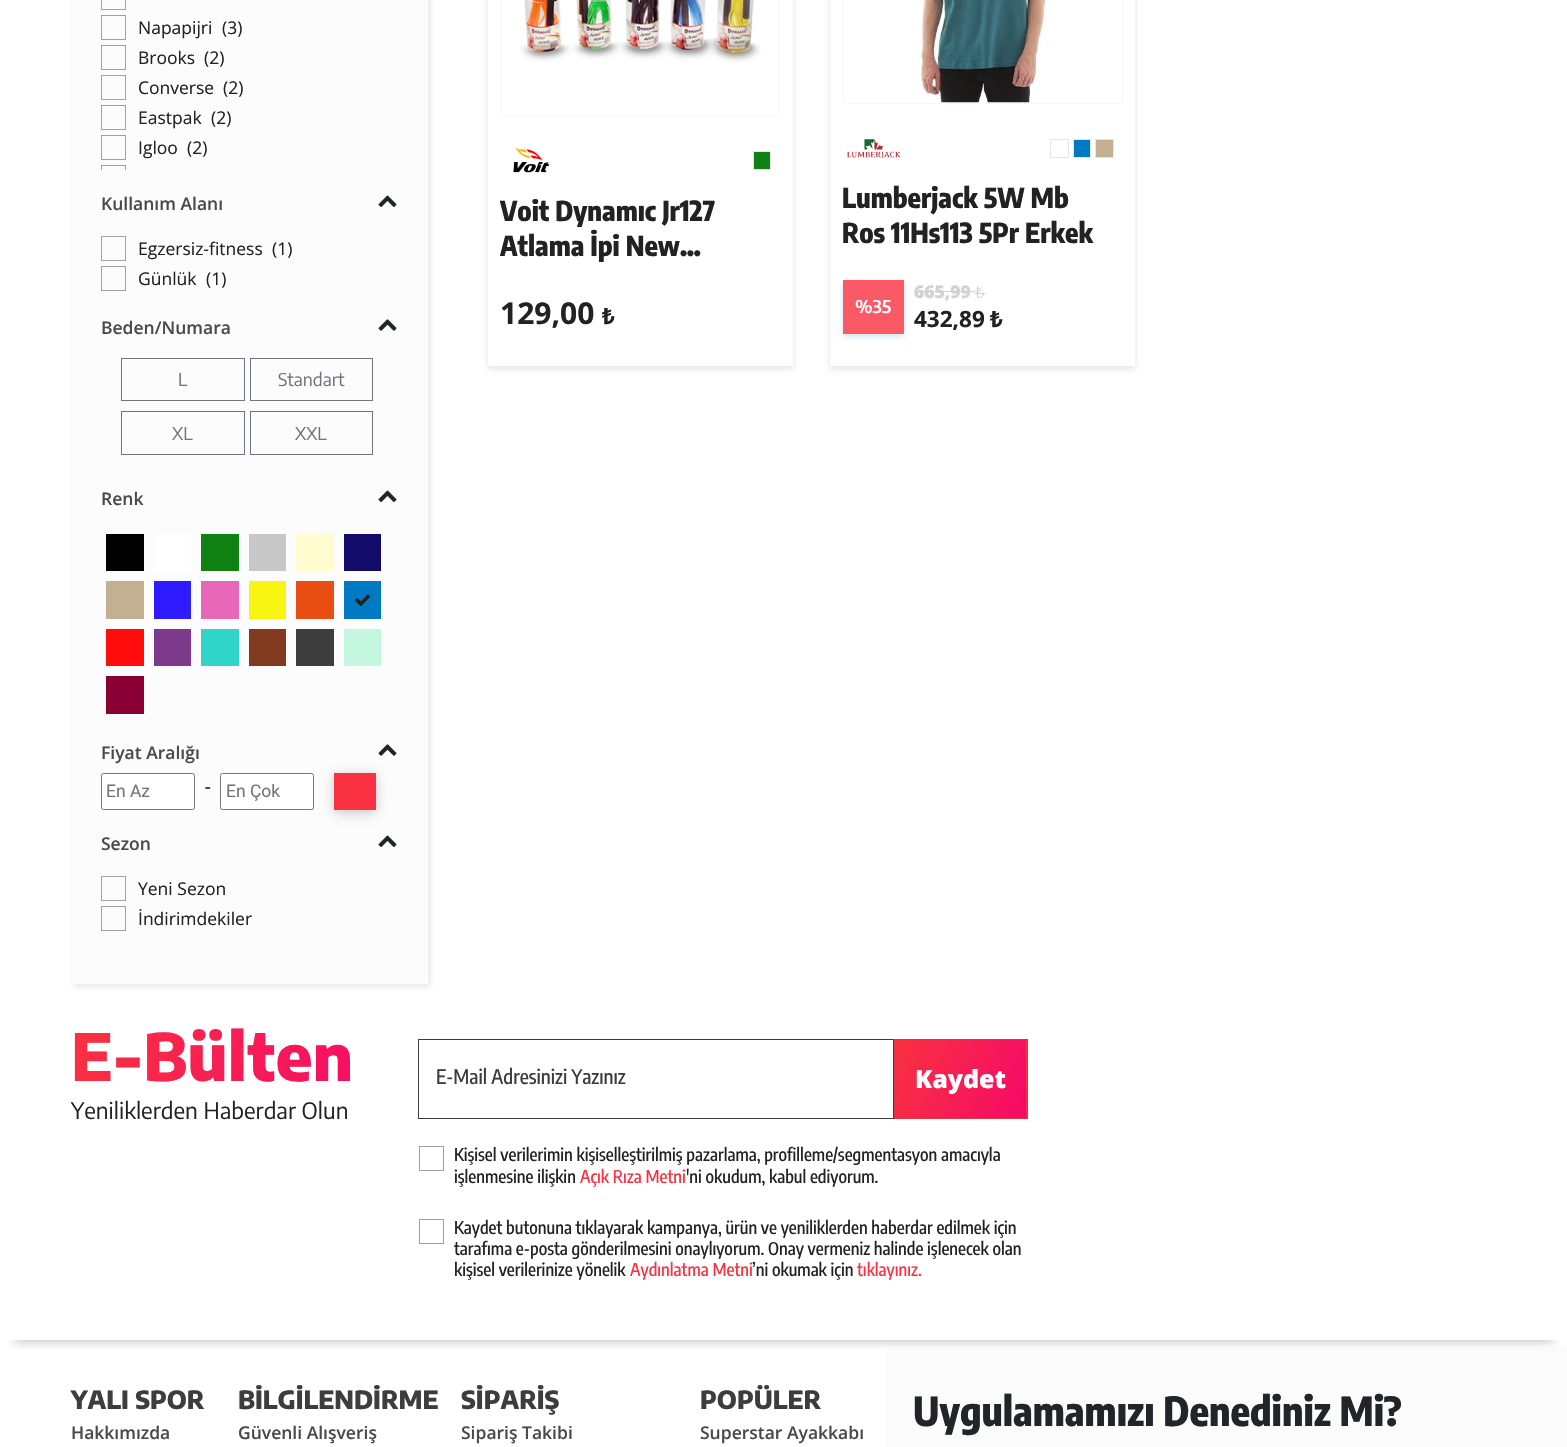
void draw(SkCanvas* canvas) {
  SkPaint paint;
  paint.setAntiAlias(true);
  auto face = [&](const char* family, int weight, float size, bool italic = false) {
    SkFontStyle style(weight, SkFontStyle::kNormal_Width,
      italic ? SkFontStyle::kItalic_Slant : SkFontStyle::kUpright_Slant);
    SkFont result(fontMgr->matchFamilyStyle(family, style), size);
    result.setSubpixel(true);
    return result;
  };
  auto paste = [&](const char* path, float x, float y, float w, float h) {
    auto image = SkImages::DeferredFromEncodedData(SkData::MakeFromFileName(path));
    canvas->drawImageRect(image, SkRect::MakeXYWH(x, y, w, h), SkSamplingOptions());
  };
  auto shape = [&](const char* data, bool evenOdd = false) {
    SkPath result = *SkParsePath::FromSVGString(data);
    if (evenOdd) result.setFillType(SkPathFillType::kEvenOdd);
    return result;
  };
  canvas->clear(0xffffffff);
  paint.setColor(0x1a000000);
  paint.setMaskFilter(SkMaskFilter::MakeBlur(kNormal_SkBlurStyle, 3));
  canvas->drawRect(SkRect::MakeXYWH(74, -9, 356, 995), paint);
  paint.setMaskFilter(nullptr);
  paint.setColor(0xfffcfcfc);
  canvas->drawRect(SkRect::MakeXYWH(72, 0, 356, 984), paint);
  paint.setStroke(true);
  paint.setStrokeWidth(1);
  paint.setColor(0xffa0a0a0);
  canvas->drawRect(SkRect::MakeXYWH(101.5f, -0.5f, 24, 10), paint);
  canvas->drawRect(SkRect::MakeXYWH(101.5f, 15.5f, 24, 24), paint);
  canvas->drawRect(SkRect::MakeXYWH(101.5f, 45.5f, 24, 24), paint);
  canvas->drawRect(SkRect::MakeXYWH(101.5f, 75.5f, 24, 24), paint);
  canvas->drawRect(SkRect::MakeXYWH(101.5f, 105.5f, 24, 24), paint);
  canvas->drawRect(SkRect::MakeXYWH(101.5f, 135.5f, 24, 24), paint);
  canvas->save();
  canvas->clipRect(SkRect::MakeXYWH(101, 0, 297, 170));
  canvas->drawRect(SkRect::MakeXYWH(101.5f, 165.5f, 24, 24), paint);
  canvas->restore();
  paste("img/1.png", 378, 195, 19, 12);
  canvas->drawRect(SkRect::MakeXYWH(101.5f, 236.5f, 24, 24), paint);
  canvas->drawRect(SkRect::MakeXYWH(101.5f, 266.5f, 24, 24), paint);
  paste("img/2.png", 378, 319, 19, 12);
  paint.setColor(0xff6c757d);
  canvas->drawRect(SkRect::MakeXYWH(121.5f, 358.5f, 123, 42), paint);
  canvas->drawRect(SkRect::MakeXYWH(250.5f, 358.5f, 122, 42), paint);
  canvas->drawRect(SkRect::MakeXYWH(121.5f, 411.5f, 123, 43), paint);
  canvas->drawRect(SkRect::MakeXYWH(250.5f, 411.5f, 122, 43), paint);
  paste("img/1.png", 378, 490, 19, 12);
  paint.setStroke(false);
  {
    const struct { float x, y, w, h; SkColor color; } items[] = {
      {106, 534, 38, 37, 0xff000000},
      {154, 534, 37, 37, 0xffffffff},
      {201, 534, 38, 37, 0xff108213},
      {249, 534, 37, 37, 0xffc7c7c7},
      {296, 534, 38, 37, 0xfffffdd0},
      {344, 534, 37, 37, 0xff130b69},
      {106, 581, 38, 38, 0xffc3b091},
      {154, 581, 37, 38, 0xff2e1bff},
      {201, 581, 38, 38, 0xffe867b9},
      {249, 581, 37, 38, 0xfff7f511},
      {296, 581, 38, 38, 0xffe84e11},
      {344, 581, 37, 38, 0xff007ac4},
    };
    for (auto [x, y, w, h, color] : items) {
      paint.setColor(color);
      canvas->drawRect(SkRect::MakeXYWH(x, y, w, h), paint);
    }
  }
  paste("img/3.png", 354, 594, 16, 13);
  {
    const struct { float x, y, w, h; SkColor color; } items[] = {
      {106, 629, 38, 37, 0xffff0c0c},
      {154, 629, 37, 37, 0xff7e3a8a},
      {201, 629, 38, 37, 0xff30d5c8},
      {249, 629, 37, 37, 0xff823b1f},
      {296, 629, 38, 37, 0xff3d3d3d},
      {344, 629, 37, 37, 0xffc4f7df},
      {106, 676, 38, 38, 0xff8a0034},
    };
    for (auto [x, y, w, h, color] : items) {
      paint.setColor(color);
      canvas->drawRect(SkRect::MakeXYWH(x, y, w, h), paint);
    }
  }
  paste("img/2.png", 378, 744, 19, 12);
  paint.setColor(0xffffffff);
  canvas->drawRoundRect(SkRect::MakeXYWH(101.5f, 773.5f, 93, 36), 2, 2, paint);
  paint.setStroke(true);
  paint.setColor(0xff767676);
  canvas->drawRoundRect(SkRect::MakeXYWH(101.5f, 773.5f, 93, 36), 2, 2, paint);
  paint.setStroke(false);
  paint.setColor(0xffffffff);
  canvas->drawRoundRect(SkRect::MakeXYWH(220.5f, 773.5f, 93, 36), 2, 2, paint);
  paint.setStroke(true);
  paint.setColor(0xff767676);
  canvas->drawRoundRect(SkRect::MakeXYWH(220.5f, 773.5f, 93, 36), 2, 2, paint);
  paint.setStroke(false);
  paint.setColor(0x33000000);
  paint.setMaskFilter(SkMaskFilter::MakeBlur(kNormal_SkBlurStyle, 6));
  canvas->drawRect(SkRect::MakeXYWH(334, 775, 42, 38), paint);
  paint.setMaskFilter(nullptr);
  paint.setColor(0xfff93140);
  canvas->drawRect(SkRect::MakeXYWH(334, 773, 42, 37), paint);
  paste("img/1.png", 378, 835, 19, 12);
  paint.setStroke(true);
  paint.setColor(0xffa0a0a0);
  canvas->drawRect(SkRect::MakeXYWH(101.5f, 876.5f, 24, 24), paint);
  canvas->drawRect(SkRect::MakeXYWH(101.5f, 906.5f, 24, 24), paint);
  paint.setStroke(false);
  paint.setColor(0x1a000000);
  paint.setMaskFilter(SkMaskFilter::MakeBlur(kNormal_SkBlurStyle, 3));
  canvas->drawRect(SkRect::MakeXYWH(488, -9, 305, 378), paint);
  paint.setMaskFilter(nullptr);
  paint.setColor(0xffffffff);
  canvas->drawRect(SkRect::MakeXYWH(488, 0, 305, 366), paint);
  paint.setStroke(true);
  paint.setColor(0xfff7f7f7);
  canvas->drawRect(SkRect::MakeXYWH(500.5f, -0.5f, 279, 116), paint);
  paste("img/4.png", 520, 0, 241, 62);
  paste("img/5.png", 513, 147, 37, 26);
  paint.setStroke(false);
  paint.setColor(0xff108213);
  canvas->drawRect(SkRect::MakeXYWH(753.5f, 151.5f, 17, 18), paint);
  paint.setStroke(true);
  paint.setColor(0xffe7e5e5);
  canvas->drawRect(SkRect::MakeXYWH(753.5f, 151.5f, 17, 18), paint);
  canvas->save();
  canvas->clipPath(shape("M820 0H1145V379H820ZM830-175H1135V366H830Z", true), true);
  paint.setStroke(false);
  paint.setColor(0x1a000000);
  paint.setMaskFilter(SkMaskFilter::MakeBlur(kNormal_SkBlurStyle, 3));
  canvas->drawRect(SkRect::MakeXYWH(830, -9, 305, 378), paint);
  paint.setMaskFilter(nullptr);
  canvas->restore();
  paint.setStroke(true);
  paint.setColor(0xfff7f7f7);
  canvas->drawRect(SkRect::MakeXYWH(843.5f, -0.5f, 279, 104), paint);
  paste("img/6.png", 913, 0, 133, 103);
  paste("img/7.png", 847, 139, 54, 20);
  paint.setColor(0xffe7e5e5);
  canvas->drawRect(SkRect::MakeXYWH(1050.5f, 139.5f, 18, 18), paint);
  paint.setStroke(false);
  paint.setColor(0xff007ac4);
  canvas->drawRect(SkRect::MakeXYWH(1073.5f, 139.5f, 17, 18), paint);
  paint.setStroke(true);
  paint.setColor(0xffe7e5e5);
  canvas->drawRect(SkRect::MakeXYWH(1073.5f, 139.5f, 17, 18), paint);
  paint.setStroke(false);
  paint.setColor(0xffc3b091);
  canvas->drawRect(SkRect::MakeXYWH(1095.5f, 139.5f, 18, 18), paint);
  paint.setStroke(true);
  paint.setColor(0xffe7e5e5);
  canvas->drawRect(SkRect::MakeXYWH(1095.5f, 139.5f, 18, 18), paint);
  paint.setStroke(false);
  paint.setColor(0x4d34accc);
  paint.setMaskFilter(SkMaskFilter::MakeBlur(kNormal_SkBlurStyle, 3));
  canvas->drawRect(SkRect::MakeXYWH(843, 283, 61, 53), paint);
  paint.setMaskFilter(nullptr);
  {
    const struct { float x, y, w, h; SkColor color; } items[] = {
      {843, 280, 61, 54, 0xfffa5a66},
      {914, 291, 61, 1, 0xffd3d1d2},
      {975, 293, 10, 1, 0xffd3d1d2},
    };
    for (auto [x, y, w, h, color] : items) {
      paint.setColor(color);
      canvas->drawRect(SkRect::MakeXYWH(x, y, w, h), paint);
    }
  }
  canvas->save();
  canvas->clipRect(SkRect::MakeXYWH(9, 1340, 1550, 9));
  paint.setColor(0x4d000000);
  paint.setMaskFilter(SkMaskFilter::MakeBlur(kNormal_SkBlurStyle, 6));
  canvas->drawRect(SkRect::MakeXYWH(15, 1014, 1538, 326), paint);
  paint.setMaskFilter(nullptr);
  canvas->restore();
  paint.setStroke(true);
  paint.setColor(0xff3d3d3d);
  canvas->drawRect(SkRect::MakeXYWH(418.5f, 1039.5f, 475, 79), paint);
  paint.setStroke(false);
  {
    const SkColor colors[] = {0xfff93140, 0xfff50a68};
    const float stops[] = {0, 1};
    const SkPoint ends[] = {{891, 1049}, {1030, 1108}};
    paint.setShader(SkGradientShader::MakeLinear(ends, colors, stops, 2, SkTileMode::kClamp));
    paint.setAlpha(255);
  }
  canvas->drawRect(SkRect::MakeXYWH(895, 1040, 131, 78), paint);
  {
    const SkColor colors[] = {0xfff93140, 0xfff50a68};
    const float stops[] = {0, 1};
    const SkPoint ends[] = {{1022, 1049}, {1161, 1108}};
    paint.setShader(SkGradientShader::MakeLinear(ends, colors, stops, 2, SkTileMode::kClamp));
    paint.setAlpha(255);
  }
  canvas->drawRect(SkRect::MakeXYWH(1026, 1040, 1, 78), paint);
  paint.setStroke(true);
  paint.setShader(nullptr);
  paint.setColor(0xffdc3545);
  canvas->drawRect(SkRect::MakeXYWH(894.5f, 1039.5f, 133, 79), paint);
  paint.setColor(0xffa0a0a0);
  canvas->drawRect(SkRect::MakeXYWH(419.5f, 1146.5f, 24, 24), paint);
  canvas->drawRect(SkRect::MakeXYWH(419.5f, 1219.5f, 24, 24), paint);
  paint.setStroke(false);
  paint.setColor(0x99f8f8f8);
  canvas->drawRect(SkRect::MakeXYWH(886, 1346, 681, 101), paint);
  auto f0 = face("Open Sans", 400, 17.5f);
  paint.setColor(0xff222222);
  {
    const struct { const char* s; float x, y; } items[] = {
      {"Napapijri", 138, 34},
      {"(3)", 222, 34},
      {"Brooks", 138, 64},
      {"(2)", 204, 64},
      {"Converse", 138, 94},
      {"(2)", 223, 94},
      {"Eastpak", 138, 124},
      {"(2)", 211, 124},
      {"Igloo", 138, 154},
      {"(2)", 187, 154},
    };
    for (auto [s, x, y] : items) {
      canvas->drawString(s, x, y, f0, paint);
    }
  }
  auto f1 = face("Open Sans", 600, 17.5f);
  paint.setColor(0xff4a4a4a);
  canvas->drawString("Kullanım Alanı", 101, 210, f1, paint);
  paint.setColor(0xff222222);
  {
    const struct { const char* s; float x, y; } items[] = {
      {"Egzersiz-fitness", 138, 255},
      {"(1)", 272, 255},
      {"Günlük", 138, 285},
      {"(1)", 206, 285},
    };
    for (auto [s, x, y] : items) {
      canvas->drawString(s, x, y, f0, paint);
    }
  }
  paint.setColor(0xff4a4a4a);
  canvas->drawString("Beden/Numara", 101, 334, f1, paint);
  auto f2 = face("Encode Sans Condensed", 400, 17.5f);
  paint.setColor(0xff6c757d);
  {
    const struct { const char* s; float x, y; } items[] = {
      {"L", 178, 386},
      {"Standart", 278, 386},
      {"XL", 172, 440},
      {"XXL", 295, 440},
    };
    for (auto [s, x, y] : items) {
      canvas->drawString(s, x, y, f2, paint);
    }
  }
  paint.setColor(0xff4a4a4a);
  canvas->drawString("Renk", 101, 505, f1, paint);
  canvas->drawString("Fiyat Aralığı", 101, 759, f1, paint);
  auto f3 = face("Roboto", 400, 17.5f);
  paint.setColor(0xff757575);
  canvas->drawString("En Az", 106, 797, f3, paint);
  auto f4 = face("Roboto", 400, 20);
  paint.setColor(0xff212529);
  canvas->drawString("-", 205, 794, f4, paint);
  paint.setColor(0xff757575);
  canvas->drawString("En Çok", 226, 797, f3, paint);
  paint.setColor(0xff4a4a4a);
  canvas->drawString("Sezon", 101, 850, f1, paint);
  paint.setColor(0xff222222);
  canvas->drawString("Yeni Sezon", 138, 895, f0, paint);
  canvas->drawString("İndirimdekiler", 138, 925, f0, paint);
  auto f5 = face("Encode Sans Condensed", 800, 27.5f);
  canvas->drawString("Voit Dynamıc Jr127", 500, 221, f5, paint);
  canvas->drawString("Atlama İpi New…", 500, 256, f5, paint);
  auto f6 = face("Open Sans", 700, 30);
  canvas->drawString("129,00", 500, 324, f6, paint);
  auto f7 = face("Noto Sans", 700, 22.5f);
  canvas->drawString("₺", 602, 324, f7, paint);
  canvas->drawString("Lumberjack 5W Mb", 842, 208, f5, paint);
  canvas->drawString("Ros 11Hs113 5Pr Erkek", 842, 243, f5, paint);
  auto f8 = face("Encode Sans Condensed", 600, 17.5f);
  paint.setColor(0xffffffff);
  canvas->drawString("%35", 855, 313, f8, paint);
  auto f9 = face("Open Sans", 800, 17.5f);
  paint.setColor(0xffd3d1d2);
  canvas->drawString("665,99", 914, 298, f9, paint);
  auto f10 = face("Noto Sans", 300, 17);
  canvas->drawString("₺", 975, 298, f10, paint);
  auto f11 = face("Open Sans", 700, 22.5f);
  paint.setColor(0xff222222);
  canvas->drawString("432,89", 914, 327, f11, paint);
  canvas->drawString("₺", 990, 327, f7, paint);
  auto f12 = face("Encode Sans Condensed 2", 800, 65);
  {
    const SkColor colors[] = {0xfff93140, 0xfff50a68};
    const float stops[] = {0, 1};
    const SkPoint ends[] = {{71, 1016}, {400, 1092}};
    paint.setShader(SkGradientShader::MakeLinear(ends, colors, stops, 2, SkTileMode::kClamp));
    paint.setAlpha(255);
  }
  canvas->drawString("E-Bülten", 71, 1081, f12, paint);
  auto f13 = face("Encode Sans Condensed", 400, 22.5f);
  paint.setShader(nullptr);
  paint.setColor(0xff222222);
  canvas->drawString("Yeniliklerden Haberdar Olun", 71, 1119, f13, paint);
  auto f14 = face("Encode Sans Condensed", 500, 20);
  paint.setColor(0xff3d3d3d);
  canvas->drawString("E-Mail Adresinizi Yazınız", 436, 1084, f14, paint);
  auto f15 = face("Open Sans", 800, 25);
  paint.setColor(0xffffffff);
  canvas->drawString("Kaydet", 915, 1088, f15, paint);
  auto f16 = face("Encode Sans Condensed", 500, 17.5f);
  paint.setColor(0xff222222);
  canvas->drawString("Kişisel verilerimin kişiselleştirilmiş pazarlama, profilleme/segmentasyon amacıyla", 454, 1161, f16, paint);
  canvas->drawString("işlenmesine ilişkin", 454, 1183, f16, paint);
  paint.setColor(0xfff93140);
  canvas->drawString("Açık Rıza Metni", 580, 1183, f16, paint);
  paint.setColor(0xff222222);
  {
    const struct { const char* s; float x, y; } items[] = {
      {"'ni okudum, kabul ediyorum.", 686, 1183},
      {"Kaydet butonuna tıklayarak kampanya, ürün ve yeniliklerden haberdar edilmek için", 454, 1234},
      {"tarafıma e-posta gönderilmesini onaylıyorum. Onay vermeniz halinde işlenecek olan", 454, 1255},
      {"kişisel verilerinize yönelik", 454, 1276},
    };
    for (auto [s, x, y] : items) {
      canvas->drawString(s, x, y, f16, paint);
    }
  }
  paint.setColor(0xfff93140);
  canvas->drawString("Aydınlatma Metni", 630, 1276, f16, paint);
  paint.setColor(0xff222222);
  canvas->drawString("’ni okumak için", 752, 1276, f16, paint);
  paint.setColor(0xfff93140);
  canvas->drawString("tıklayınız.", 857, 1276, f16, paint);
  auto f17 = face("Encode Sans Condensed 2", 800, 25);
  paint.setColor(0xff3d3d3d);
  canvas->drawString("YALI SPOR", 71, 1409, f17, paint);
  paint.setColor(0xff4a4a4a);
  canvas->drawString("Hakkımızda", 71, 1439, f1, paint);
  paint.setColor(0xff3d3d3d);
  canvas->drawString("BİLGİLENDİRME", 238, 1409, f17, paint);
  paint.setColor(0xff4a4a4a);
  canvas->drawString("Güvenli Alışveriş", 238, 1439, f1, paint);
  paint.setColor(0xff3d3d3d);
  canvas->drawString("SİPARİŞ", 461, 1409, f17, paint);
  paint.setColor(0xff4a4a4a);
  canvas->drawString("Sipariş Takibi", 461, 1439, f1, paint);
  paint.setColor(0xff3d3d3d);
  canvas->drawString("POPÜLER", 700, 1409, f17, paint);
  paint.setColor(0xff4a4a4a);
  canvas->drawString("Superstar Ayakkabı", 700, 1439, f1, paint);
  auto f18 = face("Encode Sans Condensed", 800, 40);
  paint.setColor(0xff212529);
  canvas->drawString("Uygulamamızı Denediniz Mi?", 913, 1426, f18, paint);
}
